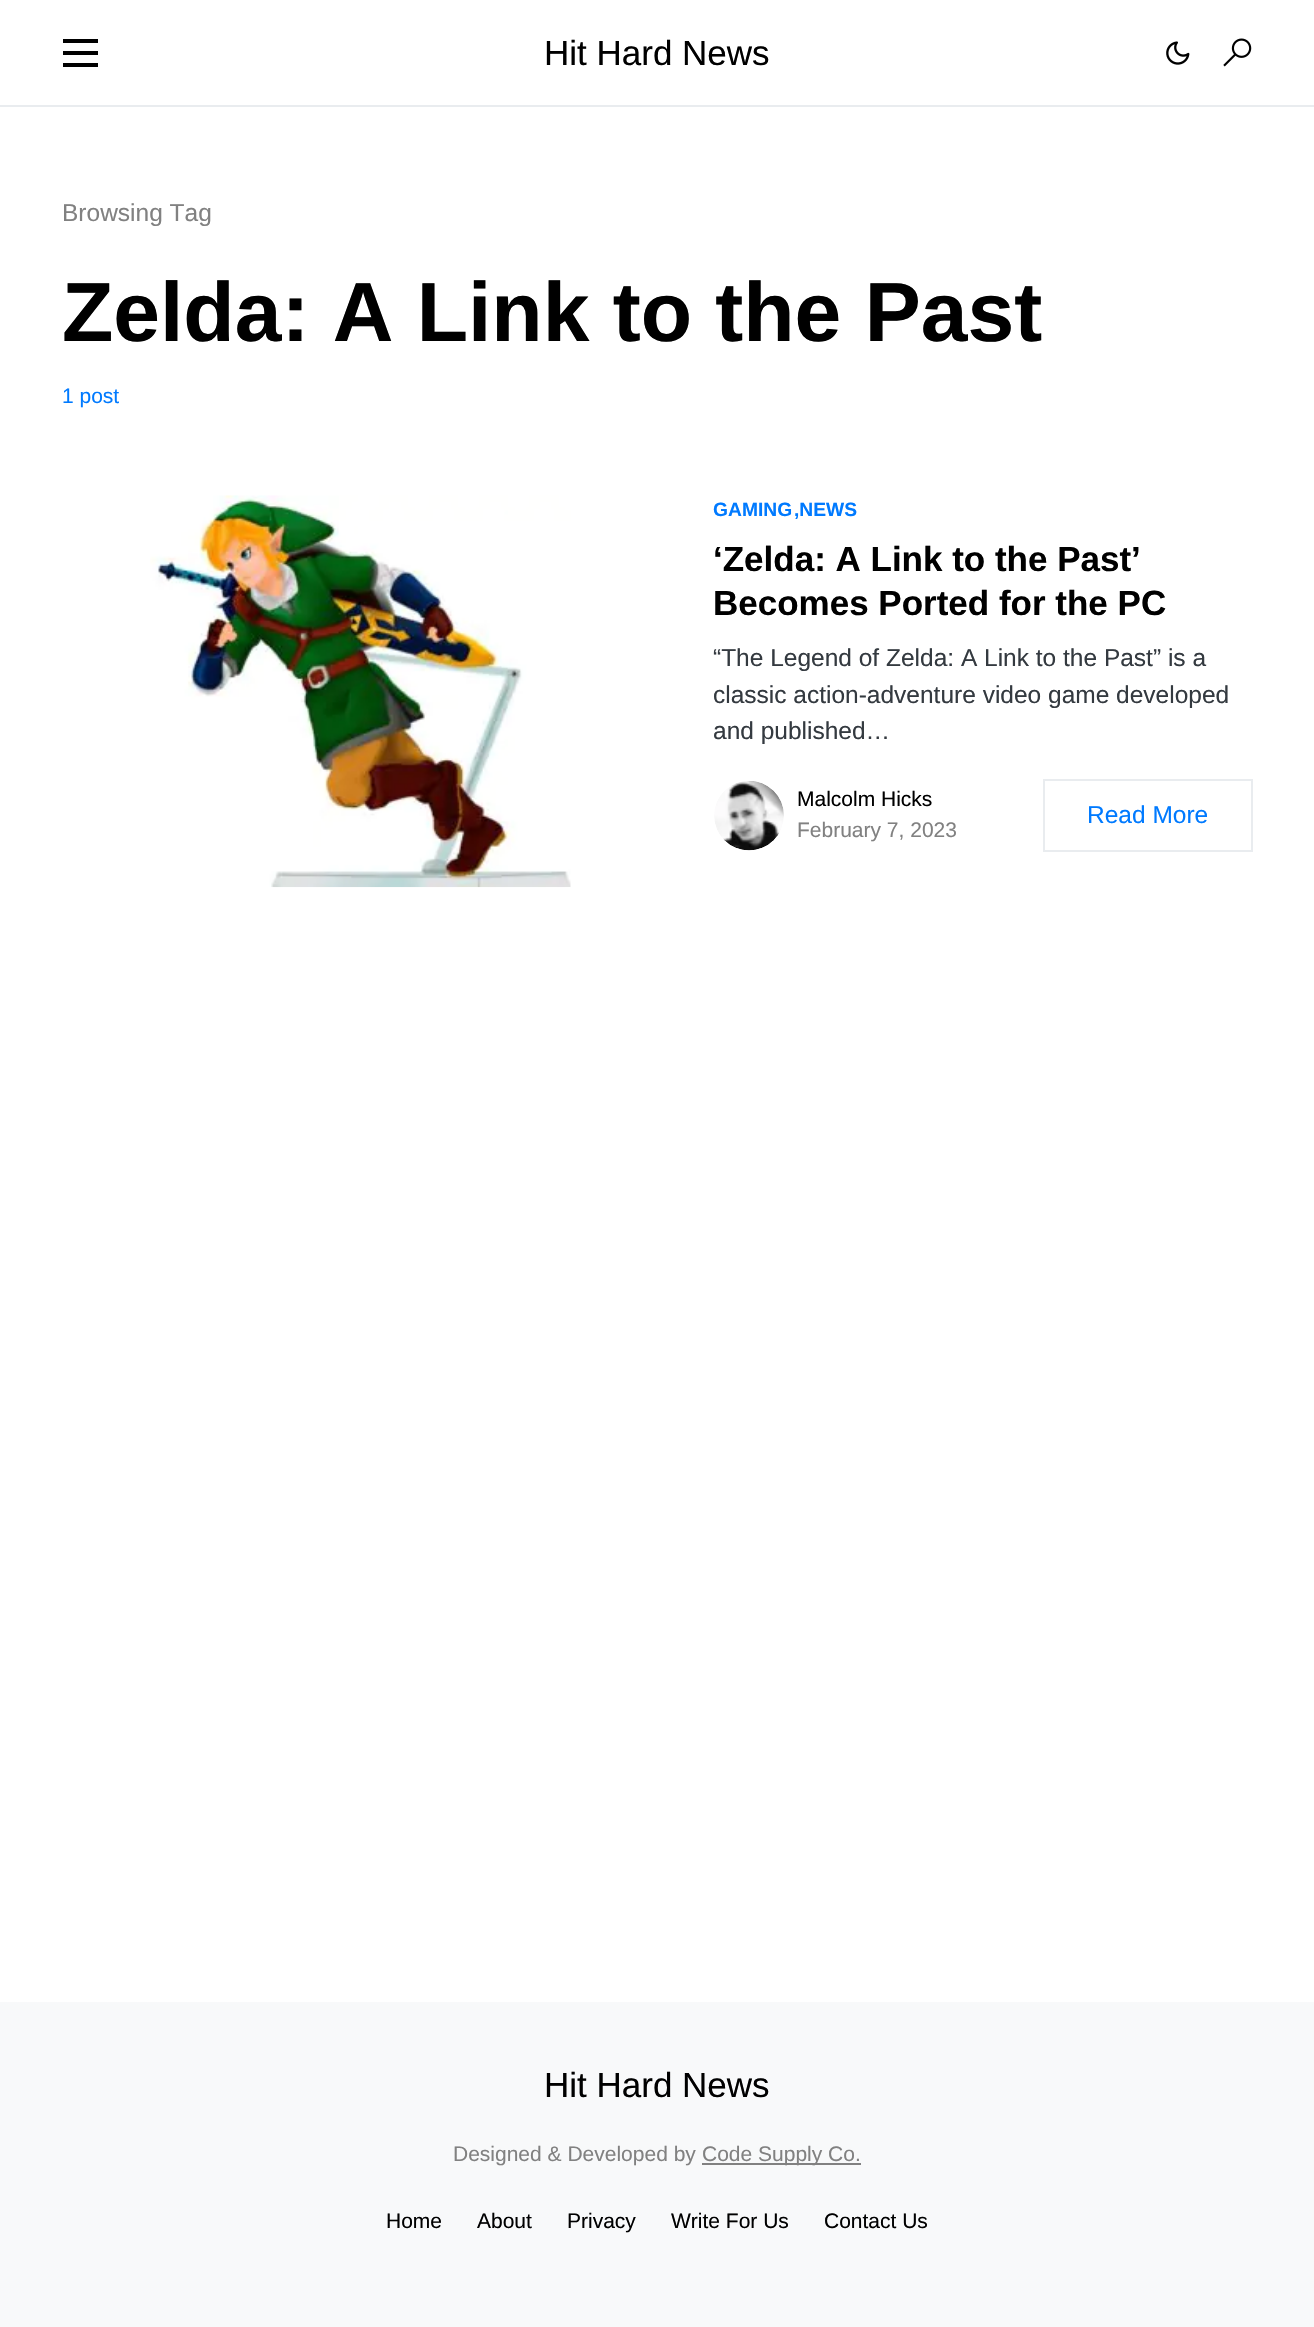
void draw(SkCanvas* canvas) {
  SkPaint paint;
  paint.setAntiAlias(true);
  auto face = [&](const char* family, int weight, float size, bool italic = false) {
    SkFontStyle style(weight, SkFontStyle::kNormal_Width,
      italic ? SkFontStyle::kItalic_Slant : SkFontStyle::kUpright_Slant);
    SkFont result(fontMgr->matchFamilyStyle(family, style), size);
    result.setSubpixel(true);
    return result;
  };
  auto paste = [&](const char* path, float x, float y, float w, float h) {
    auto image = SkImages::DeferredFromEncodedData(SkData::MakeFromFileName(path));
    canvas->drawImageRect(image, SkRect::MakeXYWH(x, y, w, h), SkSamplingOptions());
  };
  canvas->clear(0xffffffff);
  {
    const struct { float x, y, w, h; SkColor color; } items[] = {
      {0, 105, 1314, 2, 0xffe9ecef},
      {63, 39, 35, 4, 0xff000000},
      {63, 51, 35, 4, 0xff000000},
      {63, 63, 35, 4, 0xff000000},
    };
    for (auto [x, y, w, h, color] : items) {
      paint.setColor(color);
      canvas->drawRect(SkRect::MakeXYWH(x, y, w, h), paint);
    }
  }
  paste("img/1.png", 1166, 41, 24, 24);
  paste("img/2.png", 1223, 38, 29, 29);
  paste("img/3.png", 150, 495, 421, 393);
  paste("img/4.png", 714, 781, 70, 70);
  paint.setStroke(true);
  paint.setStrokeWidth(2);
  paint.setColor(0xffe9ecef);
  canvas->drawRect(SkRect::MakeXYWH(1044, 780, 208, 71), paint);
  paint.setStroke(false);
  paint.setColor(0xfff8f9fa);
  canvas->drawRect(SkRect::MakeXYWH(0, 2002, 1314, 325), paint);
  paint.setColor(0xff818181);
  canvas->drawRect(SkRect::MakeXYWH(702, 2163, 159, 2), paint);
  auto f0 = face("Liberation Sans", 400, 35);
  paint.setColor(0xff000000);
  canvas->drawString("Hit Hard News", 544, 65, f0, paint);
  auto f1 = face("Liberation Sans", 400, 24.5f);
  paint.setColor(0xff818181);
  canvas->drawString("Browsing Tag", 62, 221, f1, paint);
  auto f2 = face("Liberation Sans", 700, 84);
  paint.setColor(0xff000000);
  canvas->drawString("Zelda: A Link to the Past", 62, 341, f2, paint);
  auto f3 = face("Liberation Sans", 400, 21);
  paint.setColor(0xff007aff);
  canvas->drawString("1 post", 62, 403, f3, paint);
  auto f4 = face("Liberation Sans", 700, 19.25f);
  canvas->drawString("GAMING", 713, 516, f4, paint);
  canvas->drawString(",NEWS", 794, 516, f4, paint);
  auto f5 = face("Liberation Sans", 700, 35);
  paint.setColor(0xff000000);
  canvas->drawString("‘Zelda: A Link to the Past’", 713, 571, f5, paint);
  canvas->drawString("Becomes Ported for the PC", 713, 615, f5, paint);
  paint.setColor(0xff343a40);
  {
    const struct { const char* s; float x, y; } items[] = {
      {"“The Legend of Zelda: A Link to the Past” is a", 713, 666},
      {"classic action-adventure video game developed", 713, 703},
      {"and published…", 713, 739},
    };
    for (auto [s, x, y] : items) {
      canvas->drawString(s, x, y, f1, paint);
    }
  }
  paint.setColor(0xff000000);
  canvas->drawString("Malcolm Hicks", 797, 806, f3, paint);
  paint.setColor(0xff818181);
  canvas->drawString("February 7, 2023", 797, 837, f3, paint);
  paint.setColor(0xff007aff);
  canvas->drawString("Read More", 1087, 823, f1, paint);
  paint.setColor(0xff000000);
  canvas->drawString("Hit Hard News", 544, 2097, f0, paint);
  paint.setColor(0xff818181);
  canvas->drawString("Designed & Developed by", 453, 2161, f3, paint);
  canvas->drawString("Code Supply Co.", 702, 2161, f3, paint);
  paint.setColor(0xff000000);
  {
    const struct { const char* s; float x, y; } items[] = {
      {"Home", 386, 2228},
      {"About", 477, 2228},
      {"Privacy", 567, 2228},
      {"Write For Us", 671, 2228},
      {"Contact Us", 824, 2228},
    };
    for (auto [s, x, y] : items) {
      canvas->drawString(s, x, y, f3, paint);
    }
  }
}
